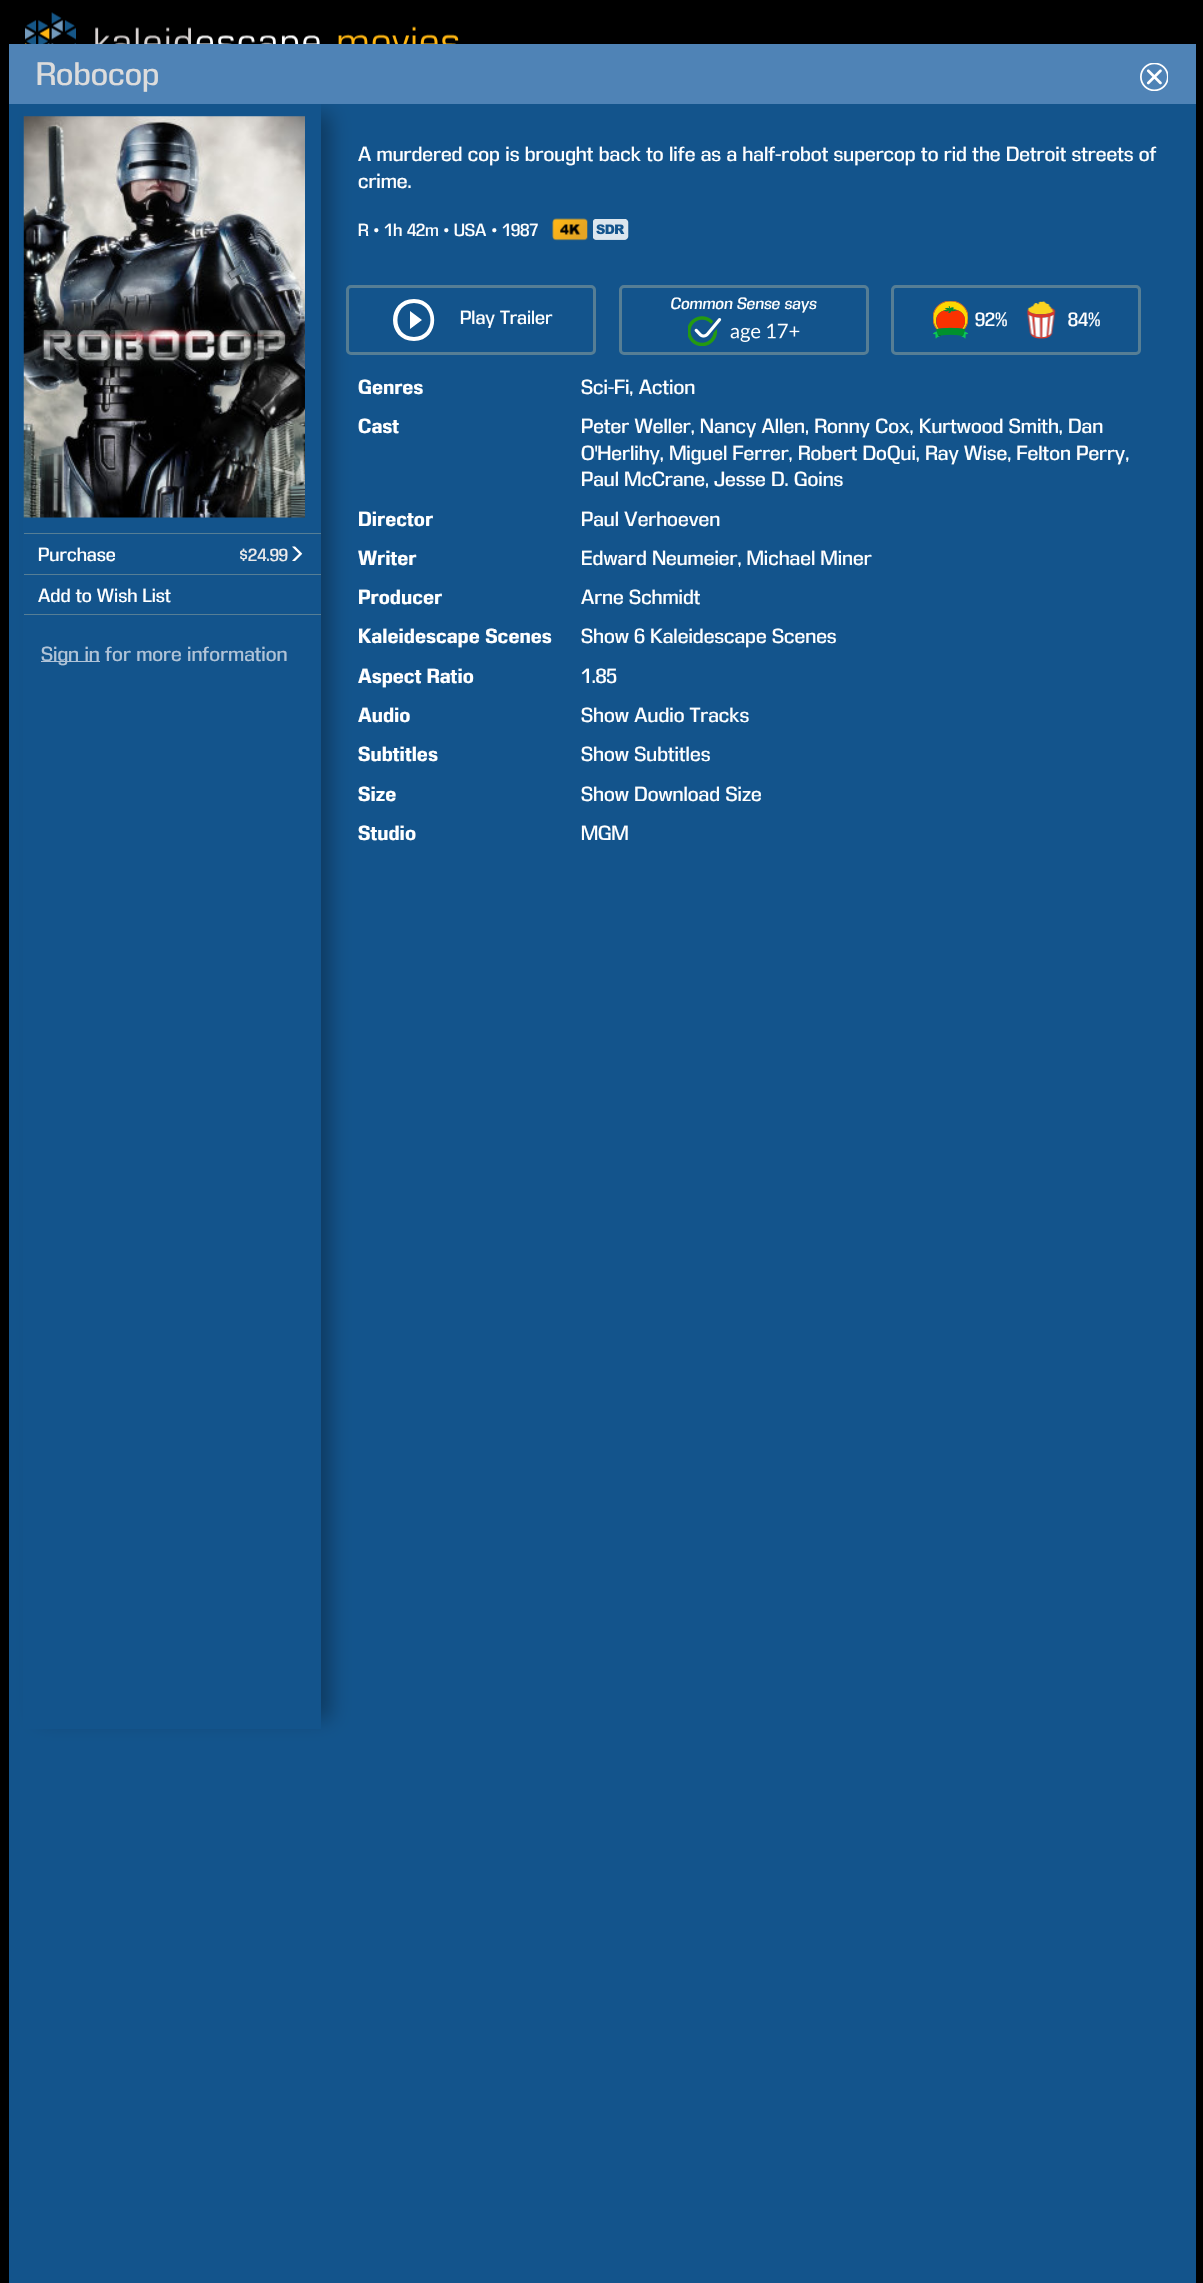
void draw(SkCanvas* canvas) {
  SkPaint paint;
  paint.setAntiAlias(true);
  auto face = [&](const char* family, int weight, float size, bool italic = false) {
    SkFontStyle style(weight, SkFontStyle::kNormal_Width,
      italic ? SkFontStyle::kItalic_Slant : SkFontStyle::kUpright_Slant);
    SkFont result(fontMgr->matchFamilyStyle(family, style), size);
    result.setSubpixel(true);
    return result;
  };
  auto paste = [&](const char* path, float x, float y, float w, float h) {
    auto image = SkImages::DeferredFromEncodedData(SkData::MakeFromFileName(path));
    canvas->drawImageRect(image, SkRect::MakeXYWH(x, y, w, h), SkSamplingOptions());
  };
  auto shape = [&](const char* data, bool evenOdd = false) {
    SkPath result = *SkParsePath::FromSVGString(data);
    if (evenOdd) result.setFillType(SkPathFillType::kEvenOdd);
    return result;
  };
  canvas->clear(0xff000000);
  paste("img/1.png", 25, 12, 434, 32);
  paint.setColor(0xff13548c);
  canvas->drawRect(SkRect::MakeXYWH(9, 104, 1187, 2179), paint);
  paint.setStroke(true);
  paint.setStrokeWidth(3);
  paint.setColor(0xff567e95);
  canvas->drawRoundRect(SkRect::MakeXYWH(347.5f, 286.5f, 247, 67), 3.5f, 3.5f, paint);
  paint.setStroke(false);
  paint.setColor(0xff0d395f);
  paint.setMaskFilter(SkMaskFilter::MakeBlur(kNormal_SkBlurStyle, 9.5f));
  canvas->drawRect(SkRect::MakeXYWH(38, 114, 292, 1605), paint);
  paint.setMaskFilter(nullptr);
  paint.setColor(0xff4f83b6);
  canvas->drawRect(SkRect::MakeXYWH(9, 44, 1187, 60), paint);
  paste("img/2.png", 1140, 63, 28, 28);
  paint.setColor(0xff13548c);
  canvas->drawRect(SkRect::MakeXYWH(23, 104, 298, 1625), paint);
  paste("img/3.png", 23, 116, 282, 402);
  paint.setColor(0xff567e95);
  canvas->drawRect(SkRect::MakeXYWH(24, 533, 297, 1), paint);
  paste("img/4.png", 292, 546, 11, 15);
  {
    const struct { float x, y, w, h; SkColor color; } items[] = {
      {24, 574, 297, 1, 0xff567e95},
      {24, 614, 297, 1, 0xff567e95},
      {41, 661, 59, 1, 0xffb0c3d7},
    };
    for (auto [x, y, w, h, color] : items) {
      paint.setColor(color);
      canvas->drawRect(SkRect::MakeXYWH(x, y, w, h), paint);
    }
  }
  paste("img/5.png", 552, 218, 36, 23);
  paste("img/6.png", 593, 219, 36, 21);
  paint.setStroke(true);
  paint.setColor(0xff567e95);
  canvas->drawRoundRect(SkRect::MakeXYWH(620.5f, 286.5f, 247, 67), 3.5f, 3.5f, paint);
  paste("img/7.png", 688, 316, 112, 30);
  paint.setStroke(false);
  paint.setColor(0xffffffff);
  canvas->drawPath(shape("M410 329L422 320L410 311ZM414 299C386 299 386 341 414 341C441 341 441 299 414 299ZM414 337C392 337 392 303 414 303C436 303 436 337 414 337Z"), paint);
  paint.setStroke(true);
  paint.setColor(0xff567e95);
  canvas->drawRoundRect(SkRect::MakeXYWH(892.5f, 286.5f, 247, 67), 3.5f, 3.5f, paint);
  paste("img/8.png", 933, 301, 35, 38);
  paste("img/9.png", 1026, 301, 30, 38);
  auto f0 = face("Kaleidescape", 400, 30);
  paint.setStroke(false);
  paint.setColor(0xffdcdcdc);
  canvas->drawString("Robocop", 36, 85, f0, paint);
  auto f1 = face("Kaleidescape", 400, 17.5f);
  paint.setColor(0xffffffff);
  canvas->drawString("Purchase", 38, 561, f1, paint);
  auto f2 = face("Kaleidescape", 400, 16);
  paint.setColor(0xffebebeb);
  canvas->drawString("$24.99", 239, 561, f2, paint);
  paint.setColor(0xffffffff);
  canvas->drawString("Add to Wish List", 38, 602, f1, paint);
  auto f3 = face("Kaleidescape", 400, 18.75f);
  paint.setColor(0xffb0c3d7);
  canvas->drawString("Sign in for more information", 41, 661, f3, paint);
  paint.setColor(0xffffffff);
  canvas->drawString("A murdered cop is brought back to life as a half-robot supercop to rid the Detroit streets of", 358, 161, f3, paint);
  canvas->drawString("crime.", 358, 188, f3, paint);
  {
    const struct { const char* s; float x, y; } items[] = {
      {"R", 358, 236},
      {"•", 374, 236},
      {"1h 42m", 384, 236},
      {"•", 444, 236},
      {"USA", 454, 236},
      {"•", 492, 236},
      {"1987", 502, 236},
    };
    for (auto [s, x, y] : items) {
      canvas->drawString(s, x, y, f2, paint);
    }
  }
  auto f4 = face("Kaleidescape", 400, 15, true);
  canvas->drawString("Common Sense says", 670, 309, f4, paint);
  {
    const struct { const char* s; float x, y; } items[] = {
      {"Play Trailer", 460, 324},
      {"92%", 975, 326},
      {"84%", 1068, 326},
    };
    for (auto [s, x, y] : items) {
      canvas->drawString(s, x, y, f1, paint);
    }
  }
  auto f5 = face("Kaleidescape", 700, 18.75f);
  canvas->drawString("Genres", 358, 394, f5, paint);
  canvas->drawString("Sci-Fi, Action", 581, 394, f3, paint);
  canvas->drawString("Cast", 358, 433, f5, paint);
  {
    const struct { const char* s; float x, y; } items[] = {
      {"Peter Weller, Nancy Allen, Ronny Cox, Kurtwood Smith, Dan", 581, 433},
      {"O'Herlihy, Miguel Ferrer, Robert DoQui, Ray Wise, Felton Perry,", 581, 460},
      {"Paul McCrane, Jesse D. Goins", 581, 486},
    };
    for (auto [s, x, y] : items) {
      canvas->drawString(s, x, y, f3, paint);
    }
  }
  canvas->drawString("Director", 358, 526, f5, paint);
  canvas->drawString("Paul Verhoeven", 581, 526, f3, paint);
  canvas->drawString("Writer", 358, 565, f5, paint);
  canvas->drawString("Edward Neumeier, Michael Miner", 581, 565, f3, paint);
  canvas->drawString("Producer", 358, 604, f5, paint);
  canvas->drawString("Arne Schmidt", 581, 604, f3, paint);
  canvas->drawString("Kaleidescape Scenes", 358, 643, f5, paint);
  canvas->drawString("Show 6 Kaleidescape Scenes", 581, 643, f3, paint);
  canvas->drawString("Aspect Ratio", 358, 683, f5, paint);
  canvas->drawString("1.85", 581, 683, f3, paint);
  canvas->drawString("Audio", 358, 722, f5, paint);
  canvas->drawString("Show Audio Tracks", 581, 722, f3, paint);
  canvas->drawString("Subtitles", 358, 761, f5, paint);
  canvas->drawString("Show Subtitles", 581, 761, f3, paint);
  canvas->drawString("Size", 358, 801, f5, paint);
  canvas->drawString("Show Download Size", 581, 801, f3, paint);
  canvas->drawString("Studio", 358, 840, f5, paint);
  canvas->drawString("MGM", 581, 840, f3, paint);
}
